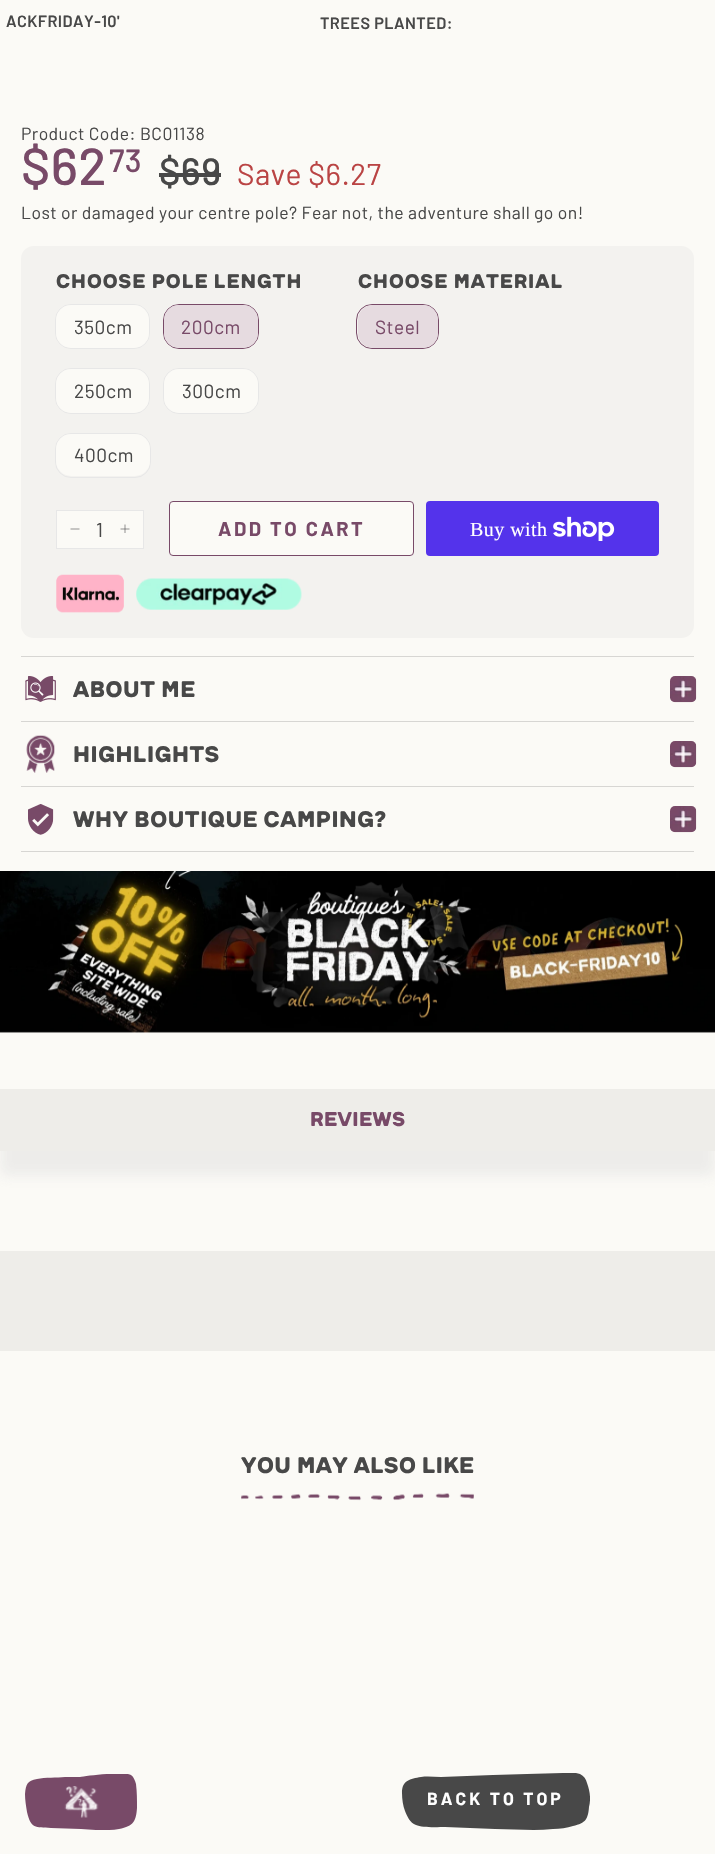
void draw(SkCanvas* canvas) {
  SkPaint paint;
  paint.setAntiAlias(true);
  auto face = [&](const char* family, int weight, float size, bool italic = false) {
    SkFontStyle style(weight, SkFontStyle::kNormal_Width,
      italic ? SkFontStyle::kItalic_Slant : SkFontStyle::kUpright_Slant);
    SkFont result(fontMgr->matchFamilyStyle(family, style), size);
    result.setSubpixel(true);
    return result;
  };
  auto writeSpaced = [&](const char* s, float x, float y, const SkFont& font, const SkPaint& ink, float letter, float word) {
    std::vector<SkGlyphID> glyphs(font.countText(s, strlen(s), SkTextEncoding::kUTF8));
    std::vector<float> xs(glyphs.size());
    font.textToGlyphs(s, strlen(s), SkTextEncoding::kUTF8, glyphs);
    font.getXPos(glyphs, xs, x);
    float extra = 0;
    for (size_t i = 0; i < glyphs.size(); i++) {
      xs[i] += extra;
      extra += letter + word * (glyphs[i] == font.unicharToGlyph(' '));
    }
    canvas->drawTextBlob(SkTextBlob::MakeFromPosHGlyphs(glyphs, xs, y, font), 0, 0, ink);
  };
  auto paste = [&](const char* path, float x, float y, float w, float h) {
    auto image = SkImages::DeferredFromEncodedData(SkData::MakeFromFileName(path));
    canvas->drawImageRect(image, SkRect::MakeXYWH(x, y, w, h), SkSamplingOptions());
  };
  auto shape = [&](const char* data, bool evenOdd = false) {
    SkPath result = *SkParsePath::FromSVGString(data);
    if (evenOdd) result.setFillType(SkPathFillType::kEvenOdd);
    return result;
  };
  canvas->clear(0xfffbfaf6);
  paint.setColor(0xff484848);
  canvas->drawRect(SkRect::MakeXYWH(159, 173, 62, 4), paint);
  paint.setColor(0xfff3f2ef);
  canvas->drawRoundRect(SkRect::MakeXYWH(21, 246, 673, 392), 13, 13, paint);
  paint.setStroke(true);
  paint.setStrokeWidth(1);
  paint.setColor(0xffe7e7e7);
  canvas->drawRoundRect(SkRect::MakeXYWH(55.5f, 304.5f, 94, 44), 15.5f, 15.5f, paint);
  paint.setStroke(false);
  paint.setColor(0xfffbfaf6);
  canvas->drawRoundRect(SkRect::MakeXYWH(56, 305, 93, 43), 15, 15, paint);
  paint.setStroke(true);
  paint.setColor(0xff784a68);
  canvas->drawRoundRect(SkRect::MakeXYWH(163.5f, 304.5f, 95, 44), 15.5f, 15.5f, paint);
  paint.setStroke(false);
  paint.setColor(0xffe6dbe0);
  canvas->drawRoundRect(SkRect::MakeXYWH(164, 305, 94, 43), 15, 15, paint);
  paint.setStroke(true);
  paint.setColor(0xffe7e7e7);
  canvas->drawRoundRect(SkRect::MakeXYWH(55.5f, 368.5f, 94, 45), 15.5f, 15.5f, paint);
  paint.setStroke(false);
  paint.setColor(0xfffbfaf6);
  canvas->drawRoundRect(SkRect::MakeXYWH(56, 369, 93, 44), 15, 15, paint);
  paint.setStroke(true);
  paint.setColor(0xffe7e7e7);
  canvas->drawRoundRect(SkRect::MakeXYWH(163.5f, 368.5f, 95, 45), 15.5f, 15.5f, paint);
  paint.setStroke(false);
  paint.setColor(0xfffbfaf6);
  canvas->drawRoundRect(SkRect::MakeXYWH(164, 369, 94, 44), 15, 15, paint);
  paint.setStroke(true);
  paint.setColor(0xffe7e7e7);
  canvas->drawRoundRect(SkRect::MakeXYWH(55.5f, 433.5f, 95, 44), 15.5f, 15.5f, paint);
  paint.setStroke(false);
  paint.setColor(0xfffbfaf6);
  canvas->drawRoundRect(SkRect::MakeXYWH(56, 434, 94, 42), 15, 15, paint);
  paint.setStroke(true);
  paint.setColor(0xff784a68);
  canvas->drawRoundRect(SkRect::MakeXYWH(356.5f, 304.5f, 82, 44), 15.5f, 15.5f, paint);
  paint.setStroke(false);
  paint.setColor(0xffe6dbe0);
  canvas->drawRoundRect(SkRect::MakeXYWH(358, 305, 80, 43), 15, 15, paint);
  paint.setColor(0xfffbfaf6);
  canvas->drawRect(SkRect::MakeXYWH(56.5f, 510.5f, 87, 38), paint);
  paint.setStroke(true);
  paint.setColor(0xffe7e7e7);
  canvas->drawRect(SkRect::MakeXYWH(56.5f, 510.5f, 87, 38), paint);
  paint.setStrokeWidth(0.6f);
  paint.setColor(0xff484848);
  canvas->drawPath(shape("M79.5 529H70.5M125 524.5V533M129.5 529H120.5"), paint);
  paint.setStroke(false);
  paint.setColor(0xfffbfaf6);
  canvas->drawRoundRect(SkRect::MakeXYWH(169.5f, 501.5f, 244, 54), 3.5f, 3.5f, paint);
  paint.setStroke(true);
  paint.setStrokeWidth(1);
  paint.setColor(0xff784a68);
  canvas->drawRoundRect(SkRect::MakeXYWH(169.5f, 501.5f, 244, 54), 3.5f, 3.5f, paint);
  paint.setStroke(false);
  paint.setColor(0xff5433eb);
  canvas->drawRoundRect(SkRect::MakeXYWH(426, 501, 233, 55), 4, 4, paint);
  paste("img/1.png", 553, 516, 62, 25);
  paste("img/2.png", 56, 574, 68, 39);
  paste("img/3.png", 136, 578, 166, 32);
  paint.setColor(0xffd7d6d3);
  canvas->drawRect(SkRect::MakeXYWH(21, 656, 673, 1), paint);
  paste("img/4.png", 25, 676, 31, 26);
  paste("img/5.png", 670, 676, 27, 27);
  canvas->drawRect(SkRect::MakeXYWH(21, 721, 673, 1), paint);
  paste("img/6.png", 26, 735, 29, 38);
  paste("img/5.png", 670, 741, 27, 27);
  canvas->drawRect(SkRect::MakeXYWH(21, 786, 673, 1), paint);
  canvas->drawRect(SkRect::MakeXYWH(21, 851, 673, 1), paint);
  paste("img/7.png", 28, 804, 26, 31);
  paste("img/5.png", 670, 806, 27, 27);
  paste("img/8.png", 0, 871, 715, 162);
  paint.setColor(0x7adedede);
  paint.setMaskFilter(SkMaskFilter::MakeBlur(kNormal_SkBlurStyle, 6));
  canvas->drawRect(SkRect::MakeXYWH(0, 1114, 715, 62), paint);
  paint.setMaskFilter(nullptr);
  paint.setColor(0xffeeede9);
  canvas->drawRect(SkRect::MakeXYWH(0, 1089, 715, 62), paint);
  canvas->drawRect(SkRect::MakeXYWH(0, 1251, 715, 100), paint);
  paste("img/9.png", 241, 1493, 233, 8);
  canvas->save();
  canvas->clipRect(SkRect::MakeXYWH(25, 1774, 113, 56));
  paint.setColor(0xff784a68);
  canvas->drawPath(shape("M136 1784C135 1781 134 1777 131 1775C125 1771 85 1776 80 1777H65C57 1778 45 1777 37 1779C27 1781 26 1784 25 1794C25 1800 26 1806 27 1812C31 1829 35 1827 51 1828L81 1829C93 1830 107 1831 119 1829C134 1826 136 1821 137 1808C137 1800 137 1792 136 1784Z"), paint);
  canvas->restore();
  paste("img/10.png", 64, 1786, 35, 32);
  canvas->save();
  canvas->clipRect(SkRect::MakeXYWH(401, 1773, 189, 57));
  paint.setColor(0xff484848);
  canvas->drawPath(shape("M587 1783C586 1779 584 1776 580 1774C575 1772 568 1773 563 1773L527 1774L493 1775L441 1777C434 1777 428 1776 421 1777C410 1779 402 1780 402 1793C402 1799 403 1806 405 1811C407 1816 410 1823 416 1825C422 1828 439 1827 445 1827L495 1829C514 1829 534 1831 553 1829C560 1829 567 1828 573 1826C586 1823 588 1819 589 1807C591 1799 590 1791 587 1783Z"), paint);
  canvas->restore();
  auto f0 = face("Barlow", 600, 16.25f);
  writeSpaced("ACKFRIDAY-10'", 6, 27, f0, paint, 0.45f, 0);
  writeSpaced("TREES PLANTED:", 320, 29, f0, paint, 0.45f, 0);
  auto f1 = face("Barlow", 400, 17.5f);
  writeSpaced("Product Code: BC01138", 21, 140, f1, paint, 0.45f, 0);
  auto f2 = face("Barlow", 500, 52);
  paint.setColor(0xff784a68);
  writeSpaced("$62", 21, 185, f2, paint, 0.45f, 0);
  auto f3 = face("Barlow", 500, 32);
  writeSpaced("73", 109, 172, f3, paint, 0.45f, 0);
  auto f4 = face("Barlow", 500, 38);
  paint.setColor(0xff484848);
  writeSpaced("$69", 159, 185, f4, paint, 0.45f, 0);
  auto f5 = face("Barlow", 400, 30);
  paint.setColor(0xffba4444);
  writeSpaced("Save $6.27", 237, 185, f5, paint, 0.45f, 0);
  paint.setColor(0xff484848);
  writeSpaced("Lost or damaged your centre pole? Fear not, the adventure shall go on!", 21, 219, f1, paint, 0.45f, 0);
  auto f6 = face("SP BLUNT", 400, 19.75f);
  writeSpaced("choose pole length", 56, 288, f6, paint, 1, 0);
  auto f7 = face("Barlow", 400, 19);
  writeSpaced("350cm", 74, 334, f7, paint, 0.5f, 0);
  paint.setColor(0xff784a68);
  writeSpaced("200cm", 181, 334, f7, paint, 0.5f, 0);
  paint.setColor(0xff484848);
  {
    const struct { const char* s; float x, y; } items[] = {
      {"250cm", 74, 398},
      {"300cm", 182, 398},
      {"400cm", 74, 462},
    };
    for (auto [s, x, y] : items) {
      writeSpaced(s, x, y, f7, paint, 0.5f, 0);
    }
  }
  writeSpaced("choose material", 358, 288, f6, paint, 1, 0);
  paint.setColor(0xff784a68);
  writeSpaced("Steel", 375, 334, f7, paint, 0.5f, 0);
  auto f8 = face("Barlow", 400, 20);
  paint.setColor(0xff484848);
  canvas->drawString("1", 96, 537, f8, paint);
  auto f9 = face("Barlow", 700, 20);
  paint.setColor(0xff784a68);
  writeSpaced("ADD TO CART", 218, 536, f9, paint, 2.5f, 0);
  auto f10 = face("Liberation Serif", 400, 20);
  paint.setColor(0xffffffff);
  writeSpaced("Buy with", 470, 536, f10, paint, 0.45f, 0);
  auto f11 = face("SP BLUNT", 400, 22.5f);
  paint.setColor(0xff484848);
  {
    const struct { const char* s; float x, y; } items[] = {
      {"About Me", 73, 697},
      {"Highlights", 73, 762},
      {"Why Boutique Camping?", 73, 827},
    };
    for (auto [s, x, y] : items) {
      writeSpaced(s, x, y, f11, paint, 0.6f, 0);
    }
  }
  auto f12 = face("SP BLUNT", 400, 20);
  paint.setColor(0xff784a68);
  writeSpaced("Reviews", 310, 1126, f12, paint, 0.45f, 0);
  paint.setColor(0xff484848);
  writeSpaced("you may also like", 241, 1473, f11, paint, 0.45f, 0);
  auto f13 = face("Barlow", 700, 17.5f);
  paint.setColor(0xffffffff);
  writeSpaced("BACK TO TOP", 427, 1805, f13, paint, 3, 0);
}
